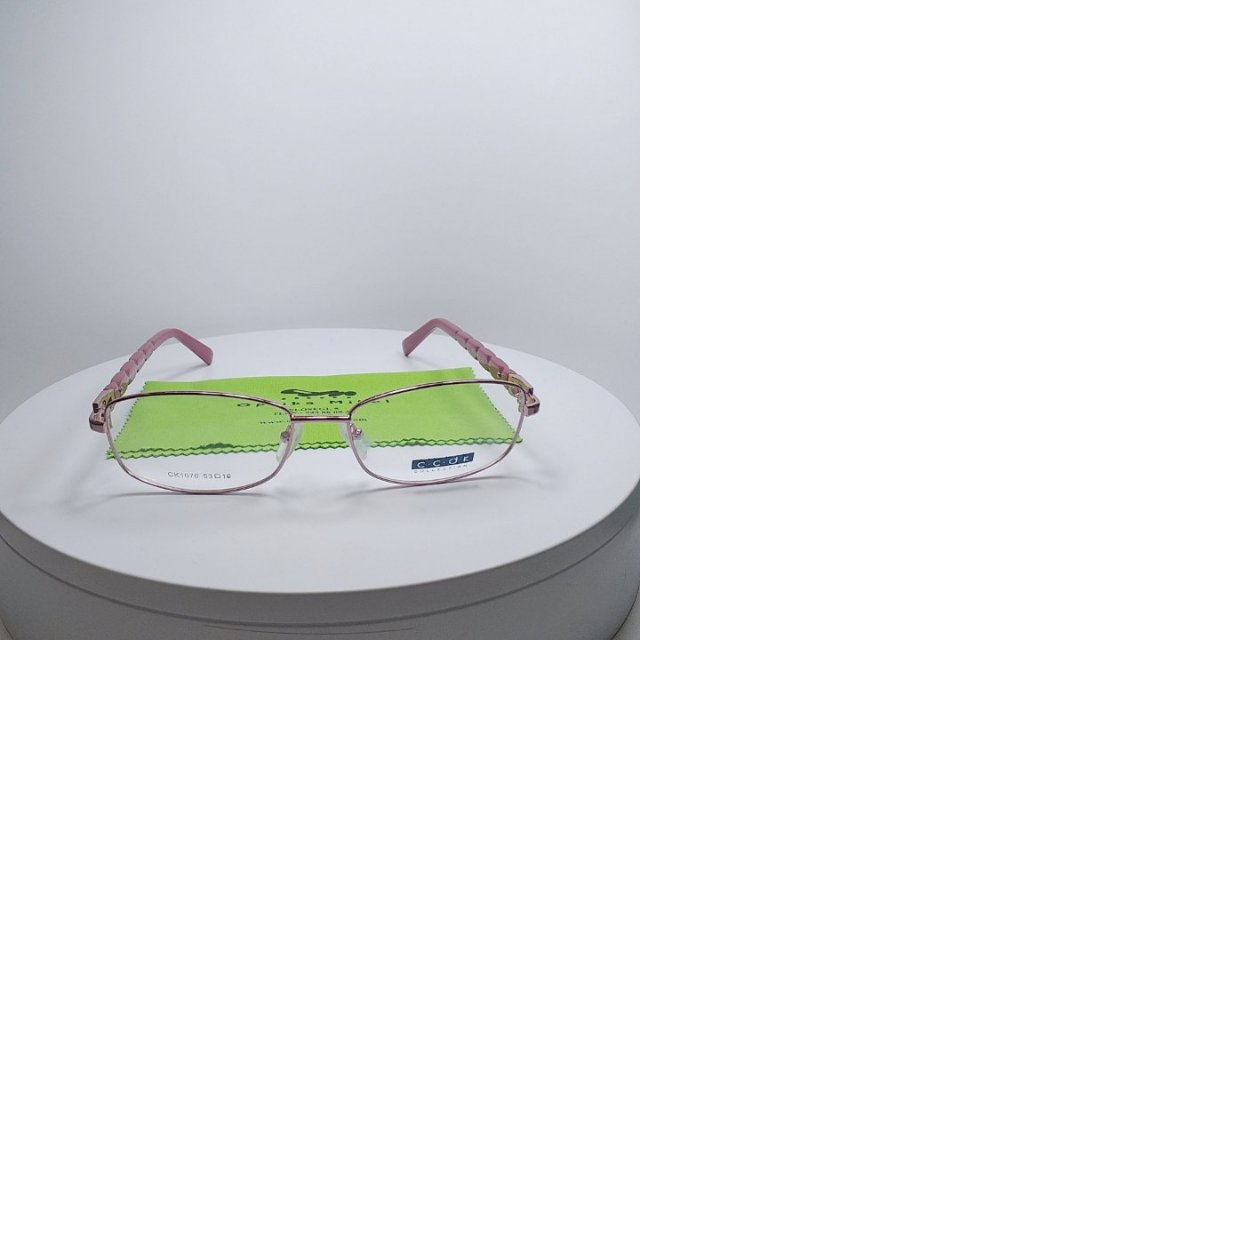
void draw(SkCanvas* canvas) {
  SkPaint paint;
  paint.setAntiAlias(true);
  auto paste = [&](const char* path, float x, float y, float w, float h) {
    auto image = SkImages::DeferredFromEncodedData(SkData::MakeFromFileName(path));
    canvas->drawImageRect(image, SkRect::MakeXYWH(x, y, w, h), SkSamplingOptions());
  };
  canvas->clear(0xffffffff);
  paste("img/1.png", 0, 0, 640, 640);
}
